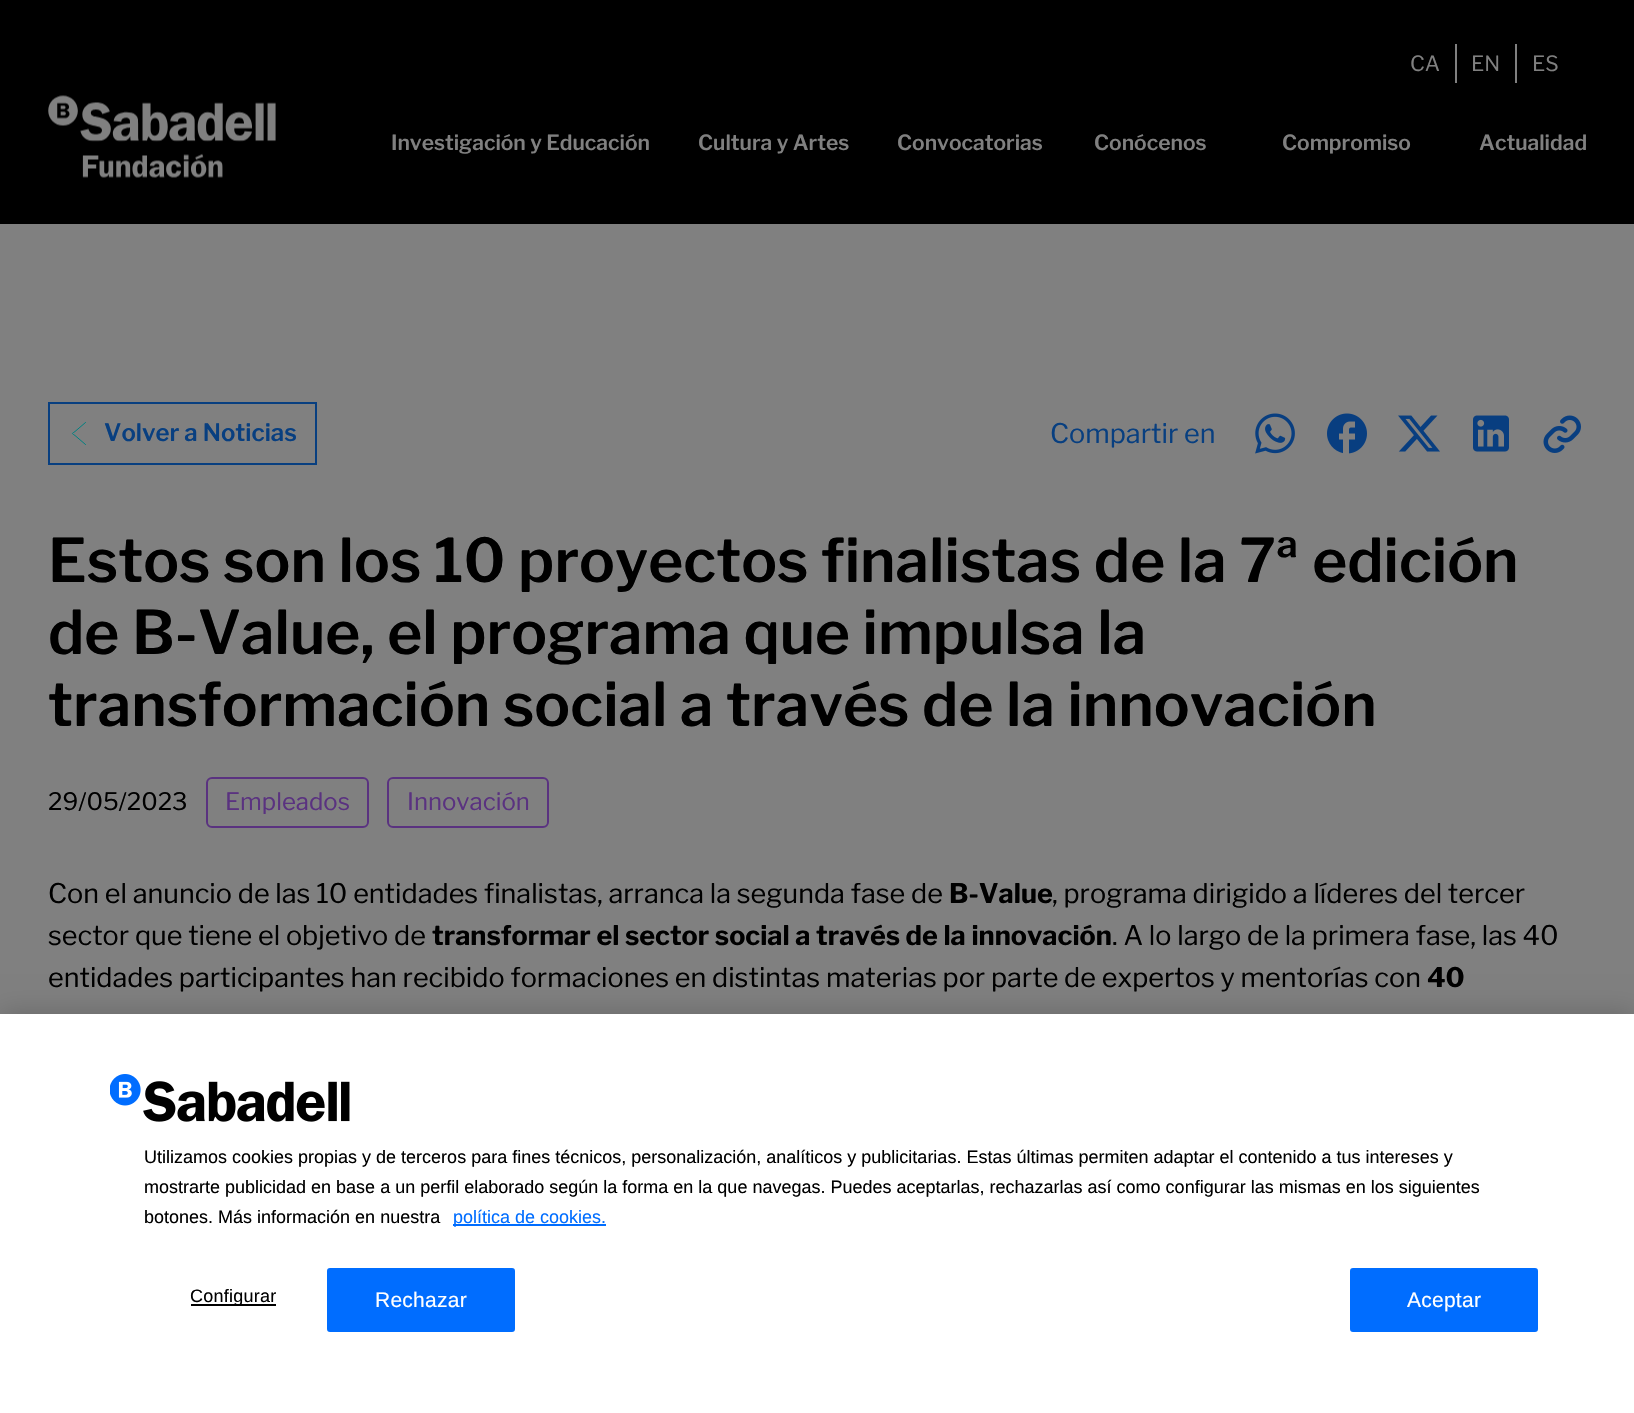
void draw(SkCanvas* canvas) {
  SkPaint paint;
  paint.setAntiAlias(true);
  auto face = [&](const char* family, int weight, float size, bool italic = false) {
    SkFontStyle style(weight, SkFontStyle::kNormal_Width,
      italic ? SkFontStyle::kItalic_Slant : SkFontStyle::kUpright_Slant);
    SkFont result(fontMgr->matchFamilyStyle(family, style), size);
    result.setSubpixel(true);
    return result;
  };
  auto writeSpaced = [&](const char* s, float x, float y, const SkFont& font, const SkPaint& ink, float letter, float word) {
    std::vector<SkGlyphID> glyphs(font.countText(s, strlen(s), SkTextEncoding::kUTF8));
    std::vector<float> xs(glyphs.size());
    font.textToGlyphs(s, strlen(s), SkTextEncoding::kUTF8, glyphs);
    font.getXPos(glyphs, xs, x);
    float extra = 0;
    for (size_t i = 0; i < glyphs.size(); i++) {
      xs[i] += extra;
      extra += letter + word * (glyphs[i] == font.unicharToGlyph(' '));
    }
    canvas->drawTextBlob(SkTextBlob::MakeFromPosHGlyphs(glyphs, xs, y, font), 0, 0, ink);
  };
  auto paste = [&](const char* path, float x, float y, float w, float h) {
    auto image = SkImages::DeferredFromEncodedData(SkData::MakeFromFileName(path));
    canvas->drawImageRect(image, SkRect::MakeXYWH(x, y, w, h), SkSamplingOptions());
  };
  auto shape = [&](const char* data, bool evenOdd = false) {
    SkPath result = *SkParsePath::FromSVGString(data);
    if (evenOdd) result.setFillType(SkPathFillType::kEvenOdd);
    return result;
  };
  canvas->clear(0xff808080);
  {
    const struct { float x, y, w, h; SkColor color; } items[] = {
      {0, 0, 1634, 224, 0xff000000},
      {1455, 44, 2, 39, 0xff808080},
      {1515, 44, 2, 39, 0xff808080},
    };
    for (auto [x, y, w, h, color] : items) {
      paint.setColor(color);
      canvas->drawRect(SkRect::MakeXYWH(x, y, w, h), paint);
    }
  }
  paste("img/1.png", 48, 95, 228, 83);
  paint.setStroke(true);
  paint.setStrokeWidth(2);
  paint.setColor(0xff083f80);
  canvas->drawRect(SkRect::MakeXYWH(49, 403, 267, 61), paint);
  paint.setStrokeWidth(1);
  paint.setStrokeCap(SkPaint::kRound_Cap);
  paint.setStrokeJoin(SkPaint::kRound_Join);
  paint.setColor(0xff008080);
  canvas->drawPath(shape("M85.5 422.5L75 431.5C71.5 434 71.5 433 75 435.5L85.5 444.5"), paint);
  paste("img/2.png", 1255, 413, 40, 41);
  paste("img/3.png", 1327, 413, 40, 41);
  paste("img/4.png", 1398, 415, 42, 37);
  paste("img/5.png", 1473, 415, 36, 37);
  paste("img/6.png", 1543, 415, 38, 38);
  paint.setStrokeWidth(2);
  paint.setStrokeCap(SkPaint::kButt_Cap);
  paint.setStrokeJoin(SkPaint::kMiter_Join);
  paint.setColor(0xff5a3280);
  canvas->drawRoundRect(SkRect::MakeXYWH(207, 778, 161, 49), 5, 5, paint);
  canvas->drawRoundRect(SkRect::MakeXYWH(388, 778, 160, 49), 5, 5, paint);
  paint.setStroke(false);
  paint.setColor(0x33000000);
  paint.setMaskFilter(SkMaskFilter::MakeBlur(kNormal_SkBlurStyle, 13.5f));
  canvas->drawRect(SkRect::MakeXYWH(0, 1014, 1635, 399), paint);
  paint.setMaskFilter(nullptr);
  paint.setColor(0xffffffff);
  canvas->drawRect(SkRect::MakeXYWH(0, 1014, 1634, 399), paint);
  paste("img/7.png", 110, 1074, 240, 48);
  paint.setColor(0xff006dff);
  canvas->drawRect(SkRect::MakeXYWH(453, 1224, 153, 2), paint);
  paint.setColor(0xff000000);
  canvas->drawRect(SkRect::MakeXYWH(191, 1304, 85, 2), paint);
  paint.setColor(0xff006dff);
  canvas->drawRoundRect(SkRect::MakeXYWH(328, 1269, 186, 62), 2, 2, paint);
  paint.setStroke(true);
  canvas->drawRoundRect(SkRect::MakeXYWH(328, 1269, 186, 62), 2, 2, paint);
  paint.setStroke(false);
  canvas->drawRoundRect(SkRect::MakeXYWH(1351, 1269, 186, 62), 2, 2, paint);
  paint.setStroke(true);
  canvas->drawRoundRect(SkRect::MakeXYWH(1351, 1269, 186, 62), 2, 2, paint);
  auto f0 = face("Libre Franklin", 400, 21);
  paint.setStroke(false);
  paint.setColor(0xff808080);
  {
    const struct { const char* s; float x, y; } items[] = {
      {"CA", 1410, 71},
      {"EN", 1471, 71},
      {"ES", 1532, 71},
    };
    for (auto [s, x, y] : items) {
      canvas->drawString(s, x, y, f0, paint);
    }
  }
  auto f1 = face("Libre Franklin", 600, 21);
  {
    const struct { const char* s; float x, y; } items[] = {
      {"Investigación y Educación", 391, 150},
      {"Cultura y Artes", 698, 150},
      {"Convocatorias", 897, 150},
      {"Conócenos", 1094, 150},
      {"Compromiso", 1282, 150},
      {"Actualidad", 1479, 150},
    };
    for (auto [s, x, y] : items) {
      canvas->drawString(s, x, y, f1, paint);
    }
  }
  auto f2 = face("Libre Franklin", 600, 24);
  paint.setColor(0xff083f80);
  canvas->drawString("Volver a Noticias", 104, 441, f2, paint);
  auto f3 = face("Libre Franklin", 400, 27);
  canvas->drawString("Compartir en", 1050, 443, f3, paint);
  auto f4 = face("Libre Franklin", 600, 60);
  paint.setColor(0xff000000);
  {
    const struct { const char* s; float x, y; } items[] = {
      {"Estos son los 10 proyectos finalistas de la 7ª edición", 48, 582},
      {"de B-Value, el programa que impulsa la", 48, 654},
      {"transformación social a través de la innovación", 48, 726},
    };
    for (auto [s, x, y] : items) {
      canvas->drawString(s, x, y, f4, paint);
    }
  }
  auto f5 = face("Libre Franklin", 400, 24);
  canvas->drawString("29/05/2023", 48, 810, f5, paint);
  paint.setColor(0xff5a3280);
  canvas->drawString("Empleados", 225, 810, f5, paint);
  canvas->drawString("Innovación", 407, 810, f5, paint);
  paint.setColor(0xff000000);
  canvas->drawString("Con el anuncio de las 10 entidades finalistas, arranca la segunda fase de", 48, 903, f3, paint);
  auto f6 = face("Libre Franklin", 700, 27);
  canvas->drawString("B-Value", 949, 903, f6, paint);
  canvas->drawString(", programa dirigido a líderes del tercer", 1052, 903, f3, paint);
  canvas->drawString("sector que tiene el objetivo de", 48, 945, f3, paint);
  canvas->drawString("transformar el sector social a través de la innovación", 432, 945, f6, paint);
  canvas->drawString(". A lo largo de la primera fase, las 40", 1112, 945, f3, paint);
  canvas->drawString("entidades participantes han recibido formaciones en distintas materias por parte de expertos y mentorías con", 48, 987, f3, paint);
  canvas->drawString("40", 1427, 987, f6, paint);
  auto f7 = face("Liberation Sans", 400, 18);
  {
    const struct { const char* s; float x, y; } items[] = {
      {"Utilizamos cookies propias y de terceros para fines técnicos, personalización, analíticos y publicitarias. Estas últimas permiten adaptar el contenido a tus intereses y", 144, 1163},
      {"mostrarte publicidad en base a un perfil elaborado según la forma en la que navegas. Puedes aceptarlas, rechazarlas así como configurar las mismas en los siguientes", 144, 1193},
      {"botones. Más información en nuestra", 144, 1223},
    };
    for (auto [s, x, y] : items) {
      canvas->drawString(s, x, y, f7, paint);
    }
  }
  paint.setColor(0xff006dff);
  canvas->drawString("política de cookies.", 453, 1223, f7, paint);
  paint.setColor(0xff000000);
  writeSpaced("Configurar", 190, 1302, f7, paint, 0.25f, 0);
  auto f8 = face("Liberation Sans", 400, 21);
  paint.setColor(0xffffffff);
  writeSpaced("Rechazar", 375, 1307, f8, paint, 0.25f, 0);
  writeSpaced("Aceptar", 1407, 1307, f8, paint, 0.25f, 0);
}
